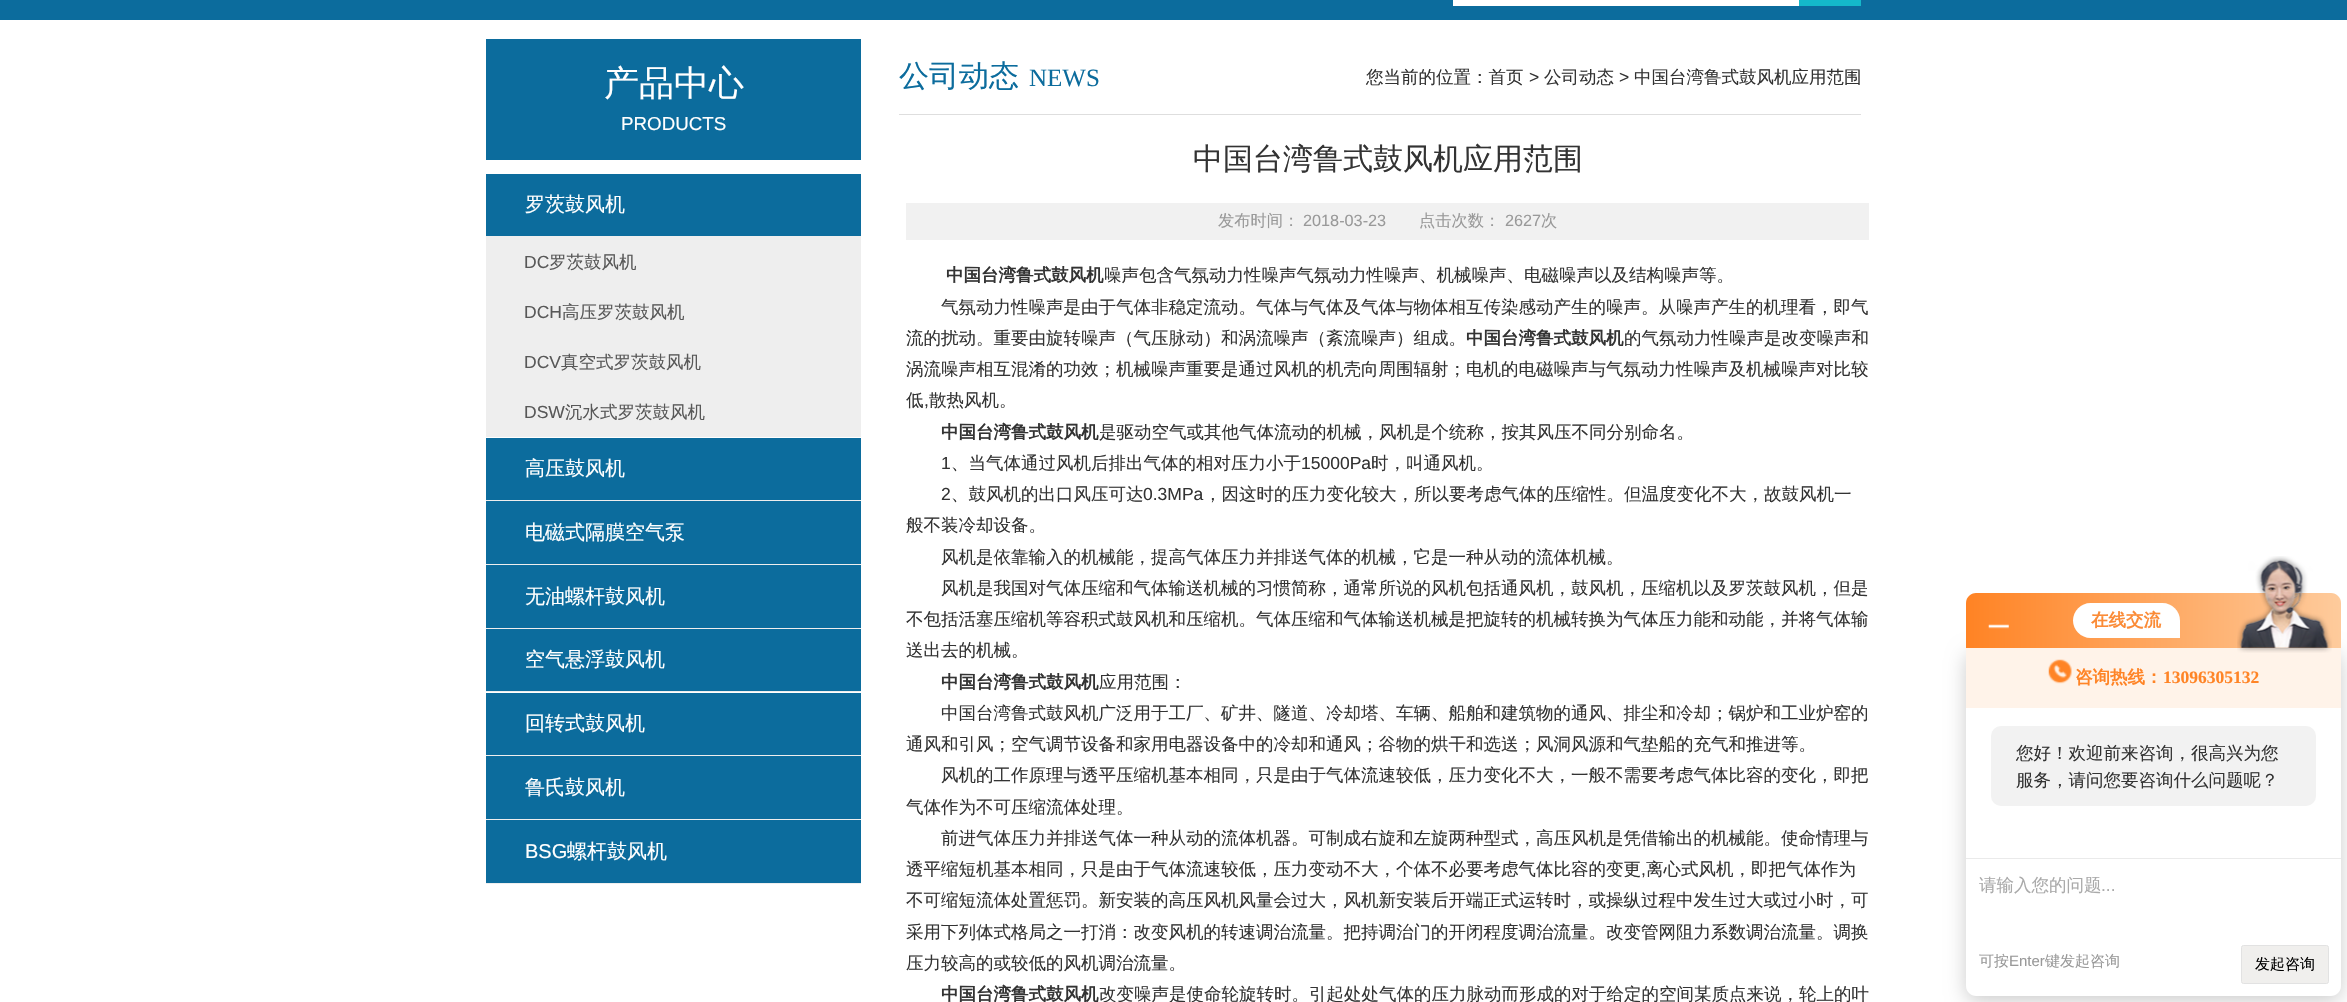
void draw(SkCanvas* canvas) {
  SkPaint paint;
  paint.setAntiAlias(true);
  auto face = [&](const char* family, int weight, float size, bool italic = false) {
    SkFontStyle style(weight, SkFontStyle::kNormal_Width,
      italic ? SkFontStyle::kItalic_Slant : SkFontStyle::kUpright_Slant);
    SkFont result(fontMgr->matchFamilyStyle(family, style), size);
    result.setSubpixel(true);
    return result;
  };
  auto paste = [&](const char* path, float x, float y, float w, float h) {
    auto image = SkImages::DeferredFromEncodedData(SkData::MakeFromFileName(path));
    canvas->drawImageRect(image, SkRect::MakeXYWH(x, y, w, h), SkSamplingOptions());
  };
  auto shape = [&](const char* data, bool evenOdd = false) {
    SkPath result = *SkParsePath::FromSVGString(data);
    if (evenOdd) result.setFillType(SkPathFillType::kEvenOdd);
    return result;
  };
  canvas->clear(0xffffffff);
  {
    const struct { float x, y, w, h; SkColor color; } items[] = {
      {0, 0, 2347, 20, 0xff0c6c9d},
      {1453, 0, 346, 6, 0xffffffff},
      {1799, 0, 62, 6, 0xff14b9ca},
      {486, 39, 375, 121, 0xff0c6c9d},
      {486, 236, 375, 201, 0xffeeeeee},
      {486, 174, 375, 62, 0xff0c6c9d},
      {486, 500, 375, 1, 0xffeeeeee},
      {486, 438, 375, 62, 0xff0c6c9d},
      {486, 564, 375, 1, 0xffeeeeee},
      {486, 501, 375, 63, 0xff0c6c9d},
      {486, 628, 375, 1, 0xffeeeeee},
      {486, 565, 375, 63, 0xff0c6c9d},
      {486, 691, 375, 1, 0xffeeeeee},
      {486, 629, 375, 62, 0xff0c6c9d},
      {486, 755, 375, 1, 0xffeeeeee},
      {486, 693, 375, 62, 0xff0c6c9d},
      {486, 819, 375, 1, 0xffeeeeee},
      {486, 756, 375, 63, 0xff0c6c9d},
      {486, 883, 375, 1, 0xffeeeeee},
      {486, 820, 375, 63, 0xff0c6c9d},
      {899, 114, 962, 1, 0xffdedede},
      {906, 203, 963, 37, 0xfff1f1f1},
    };
    for (auto [x, y, w, h, color] : items) {
      paint.setColor(color);
      canvas->drawRect(SkRect::MakeXYWH(x, y, w, h), paint);
    }
  }
  paint.setColor(0x33000000);
  paint.setMaskFilter(SkMaskFilter::MakeBlur(kNormal_SkBlurStyle, 10));
  canvas->drawRoundRect(SkRect::MakeXYWH(1966, 653, 375, 348), 10, 10, paint);
  paint.setMaskFilter(nullptr);
  {
    const SkColor colors[] = {0xffff8324, 0xfffecb9c};
    const float stops[] = {0, 1};
    const SkPoint ends[] = {{1966, 620}, {2341, 620}};
    paint.setShader(SkGradientShader::MakeLinear(ends, colors, stops, 2, SkTileMode::kClamp));
    paint.setAlpha(255);
  }
  canvas->drawPath(shape("M1976 593H2331C2336.5 593 2341 597.5 2341 603V648H1966V603C1966 597.5 1970.5 593 1976 593Z"), paint);
  paste("img/1.png", 1988, 624, 21, 5);
  paint.setShader(nullptr);
  paint.setColor(0xffffffff);
  canvas->drawPath(shape("M2090.5 603H2162.5C2172 603 2180 611 2180 620.5V638H2090.5C2081 638 2073 630 2073 620.5C2073 611 2081 603 2090.5 603Z"), paint);
  canvas->drawPath(shape("M1966 648H2341V986C2341 991.5 2336.5 996 2331 996H1976C1970.5 996 1966 991.5 1966 986Z"), paint);
  paint.setColor(0xfffff3e9);
  canvas->drawRect(SkRect::MakeXYWH(1966, 648, 375, 60), paint);
  paste("img/2.png", 2237, 556, 95, 97);
  paste("img/3.png", 2048, 659, 24, 25);
  paint.setColor(0xfff2f2f2);
  canvas->drawRoundRect(SkRect::MakeXYWH(1991, 726, 325, 80), 10, 10, paint);
  paint.setColor(0xffeaeaea);
  canvas->drawRect(SkRect::MakeXYWH(1966, 858, 375, 1), paint);
  paint.setColor(0xfff0efed);
  canvas->drawRoundRect(SkRect::MakeXYWH(2241.5f, 945.5f, 87, 38), 2, 2, paint);
  paint.setStroke(true);
  paint.setStrokeWidth(1);
  paint.setColor(0xffe2e2e2);
  canvas->drawRoundRect(SkRect::MakeXYWH(2241.5f, 945.5f, 87, 38), 2, 2, paint);
  auto f0 = face("WenQuanYi Zen Hei", 500, 35);
  paint.setStroke(false);
  paint.setColor(0xffffffff);
  canvas->drawString("产品中心", 604, 95, f0, paint);
  auto f1 = face("Liberation Sans", 400, 18.75f);
  canvas->drawString("PRODUCTS", 621, 130, f1, paint);
  auto f2 = face("WenQuanYi Zen Hei", 500, 20);
  canvas->drawString("罗茨鼓风机", 525, 211, f2, paint);
  auto f3 = face("Liberation Sans", 400, 17.5f);
  paint.setColor(0xff585858);
  canvas->drawString("DC", 524, 268, f3, paint);
  auto f4 = face("WenQuanYi Zen Hei", 500, 17.5f);
  canvas->drawString("罗茨鼓风机", 549, 268, f4, paint);
  canvas->drawString("DCH", 524, 318, f3, paint);
  canvas->drawString("高压罗茨鼓风机", 562, 318, f4, paint);
  canvas->drawString("DCV", 524, 368, f3, paint);
  canvas->drawString("真空式罗茨鼓风机", 561, 368, f4, paint);
  canvas->drawString("DSW", 524, 418, f3, paint);
  canvas->drawString("沉水式罗茨鼓风机", 565, 418, f4, paint);
  paint.setColor(0xffffffff);
  {
    const struct { const char* s; float x, y; } items[] = {
      {"高压鼓风机", 525, 475},
      {"电磁式隔膜空气泵", 525, 539},
      {"无油螺杆鼓风机", 525, 603},
      {"空气悬浮鼓风机", 525, 666},
      {"回转式鼓风机", 525, 730},
      {"鲁氏鼓风机", 525, 794},
    };
    for (auto [s, x, y] : items) {
      canvas->drawString(s, x, y, f2, paint);
    }
  }
  auto f5 = face("Liberation Sans", 400, 20);
  canvas->drawString("BSG", 525, 858, f5, paint);
  canvas->drawString("螺杆鼓风机", 567, 858, f2, paint);
  auto f6 = face("WenQuanYi Zen Hei", 500, 30);
  paint.setColor(0xff0c6c9d);
  canvas->drawString("公司动态", 899, 86, f6, paint);
  auto f7 = face("Liberation Serif", 400, 25);
  canvas->drawString("NEWS", 1029, 86, f7, paint);
  paint.setColor(0xff333333);
  canvas->drawString("您当前的位置：首页", 1366, 83, f4, paint);
  canvas->drawString(">", 1529, 83, f3, paint);
  canvas->drawString("公司动态", 1544, 83, f4, paint);
  canvas->drawString(">", 1619, 83, f3, paint);
  canvas->drawString("中国台湾鲁式鼓风机应用范围", 1634, 83, f4, paint);
  canvas->drawString("中国台湾鲁式鼓风机应用范围", 1193, 169, f6, paint);
  auto f8 = face("WenQuanYi Zen Hei", 500, 16.25f);
  paint.setColor(0xff999999);
  canvas->drawString("发布时间：", 1218, 226, f8, paint);
  auto f9 = face("Liberation Sans", 400, 16.25f);
  canvas->drawString("2018-03-23", 1303, 226, f9, paint);
  canvas->drawString("点击次数：", 1419, 226, f8, paint);
  canvas->drawString("2627", 1505, 226, f9, paint);
  canvas->drawString("次", 1541, 226, f8, paint);
  auto f10 = face("WenQuanYi Zen Hei", 700, 17.5f);
  paint.setColor(0xff333333);
  canvas->drawString("中国台湾鲁式鼓风机", 946, 281, f10, paint);
  {
    const struct { const char* s; float x, y; } items[] = {
      {"噪声包含气氛动力性噪声气氛动力性噪声、机械噪声、电磁噪声以及结构噪声等。", 1104, 281},
      {"气氛动力性噪声是由于气体非稳定流动。气体与气体及气体与物体相互传染感动产生的噪声。从噪声产生的机理看，即气", 941, 313},
      {"流的扰动。重要由旋转噪声（气压脉动）和涡流噪声（紊流噪声）组成。", 906, 344},
    };
    for (auto [s, x, y] : items) {
      canvas->drawString(s, x, y, f4, paint);
    }
  }
  canvas->drawString("中国台湾鲁式鼓风机", 1466, 344, f10, paint);
  {
    const struct { const char* s; float x, y; } items[] = {
      {"的气氛动力性噪声是改变噪声和", 1624, 344},
      {"涡流噪声相互混淆的功效；机械噪声重要是通过风机的机壳向周围辐射；电机的电磁噪声与气氛动力性噪声及机械噪声对比较", 906, 375},
      {"低", 906, 406},
    };
    for (auto [s, x, y] : items) {
      canvas->drawString(s, x, y, f4, paint);
    }
  }
  canvas->drawString(",", 924, 406, f3, paint);
  canvas->drawString("散热风机。", 929, 406, f4, paint);
  canvas->drawString("中国台湾鲁式鼓风机", 941, 438, f10, paint);
  canvas->drawString("是驱动空气或其他气体流动的机械，风机是个统称，按其风压不同分别命名。", 1099, 438, f4, paint);
  canvas->drawString("1", 941, 469, f3, paint);
  canvas->drawString("、当气体通过风机后排出气体的相对压力小于", 951, 469, f4, paint);
  canvas->drawString("15000Pa", 1301, 469, f3, paint);
  canvas->drawString("时，叫通风机。", 1371, 469, f4, paint);
  canvas->drawString("2", 941, 500, f3, paint);
  canvas->drawString("、鼓风机的出口风压可达", 951, 500, f4, paint);
  canvas->drawString("0.3MPa", 1143, 500, f3, paint);
  {
    const struct { const char* s; float x, y; } items[] = {
      {"，因这时的压力变化较大，所以要考虑气体的压缩性。但温度变化不大，故鼓风机一", 1204, 500},
      {"般不装冷却设备。", 906, 531},
      {"风机是依靠输入的机械能，提高气体压力并排送气体的机械，它是一种从动的流体机械。", 941, 563},
      {"风机是我国对气体压缩和气体输送机械的习惯简称，通常所说的风机包括通风机，鼓风机，压缩机以及罗茨鼓风机，但是", 941, 594},
      {"不包括活塞压缩机等容积式鼓风机和压缩机。气体压缩和气体输送机械是把旋转的机械转换为气体压力能和动能，并将气体输", 906, 625},
      {"送出去的机械。", 906, 656},
    };
    for (auto [s, x, y] : items) {
      canvas->drawString(s, x, y, f4, paint);
    }
  }
  canvas->drawString("中国台湾鲁式鼓风机", 941, 688, f10, paint);
  {
    const struct { const char* s; float x, y; } items[] = {
      {"应用范围：", 1099, 688},
      {"中国台湾鲁式鼓风机广泛用于工厂、矿井、隧道、冷却塔、车辆、船舶和建筑物的通风、排尘和冷却；锅炉和工业炉窑的", 941, 719},
      {"通风和引风；空气调节设备和家用电器设备中的冷却和通风；谷物的烘干和选送；风洞风源和气垫船的充气和推进等。", 906, 750},
      {"风机的工作原理与透平压缩机基本相同，只是由于气体流速较低，压力变化不大，一般不需要考虑气体比容的变化，即把", 941, 781},
      {"气体作为不可压缩流体处理。", 906, 813},
      {"前进气体压力并排送气体一种从动的流体机器。可制成右旋和左旋两种型式，高压风机是凭借输出的机械能。使命情理与", 941, 844},
      {"透平缩短机基本相同，只是由于气体流速较低，压力变动不大，个体不必要考虑气体比容的变更", 906, 875},
    };
    for (auto [s, x, y] : items) {
      canvas->drawString(s, x, y, f4, paint);
    }
  }
  canvas->drawString(",", 1641, 875, f3, paint);
  {
    const struct { const char* s; float x, y; } items[] = {
      {"离心式风机，即把气体作为", 1646, 875},
      {"不可缩短流体处置惩罚。新安装的高压风机风量会过大，风机新安装后开端正式运转时，或操纵过程中发生过大或过小时，可", 906, 906},
      {"采用下列体式格局之一打消：改变风机的转速调治流量。把持调治门的开闭程度调治流量。改变管网阻力系数调治流量。调换", 906, 938},
      {"压力较高的或较低的风机调治流量。", 906, 969},
    };
    for (auto [s, x, y] : items) {
      canvas->drawString(s, x, y, f4, paint);
    }
  }
  canvas->drawString("中国台湾鲁式鼓风机", 941, 1000, f10, paint);
  canvas->drawString("改变噪声是使命轮旋转时。引起处处气体的压力脉动而形成的对于给定的空间某质点来说，轮上的叶", 1099, 1000, f4, paint);
  paint.setColor(0xfffb8b36);
  canvas->drawString("在线交流", 2091, 626, f10, paint);
  paint.setColor(0xffff8426);
  canvas->drawString("咨询热线：", 2075, 683, f10, paint);
  auto f11 = face("Liberation Serif", 700, 17.5f);
  canvas->drawString("13096305132", 2163, 683, f11, paint);
  paint.setColor(0xff333333);
  canvas->drawString("您好！欢迎前来咨询，很高兴为您", 2016, 759, f4, paint);
  canvas->drawString("服务，请问您要咨询什么问题呢？", 2016, 786, f4, paint);
  paint.setColor(0xffaaaaaa);
  canvas->drawString("请输入您的问题", 1979, 891, f4, paint);
  canvas->drawString("...", 2101, 891, f3, paint);
  auto f12 = face("WenQuanYi Zen Hei", 500, 15);
  paint.setColor(0xff999999);
  canvas->drawString("可按", 1979, 966, f12, paint);
  auto f13 = face("Liberation Sans", 400, 15);
  canvas->drawString("Enter", 2009, 966, f13, paint);
  canvas->drawString("键发起咨询", 2045, 966, f12, paint);
  paint.setColor(0xff000000);
  canvas->drawString("发起咨询", 2255, 969, f12, paint);
}
